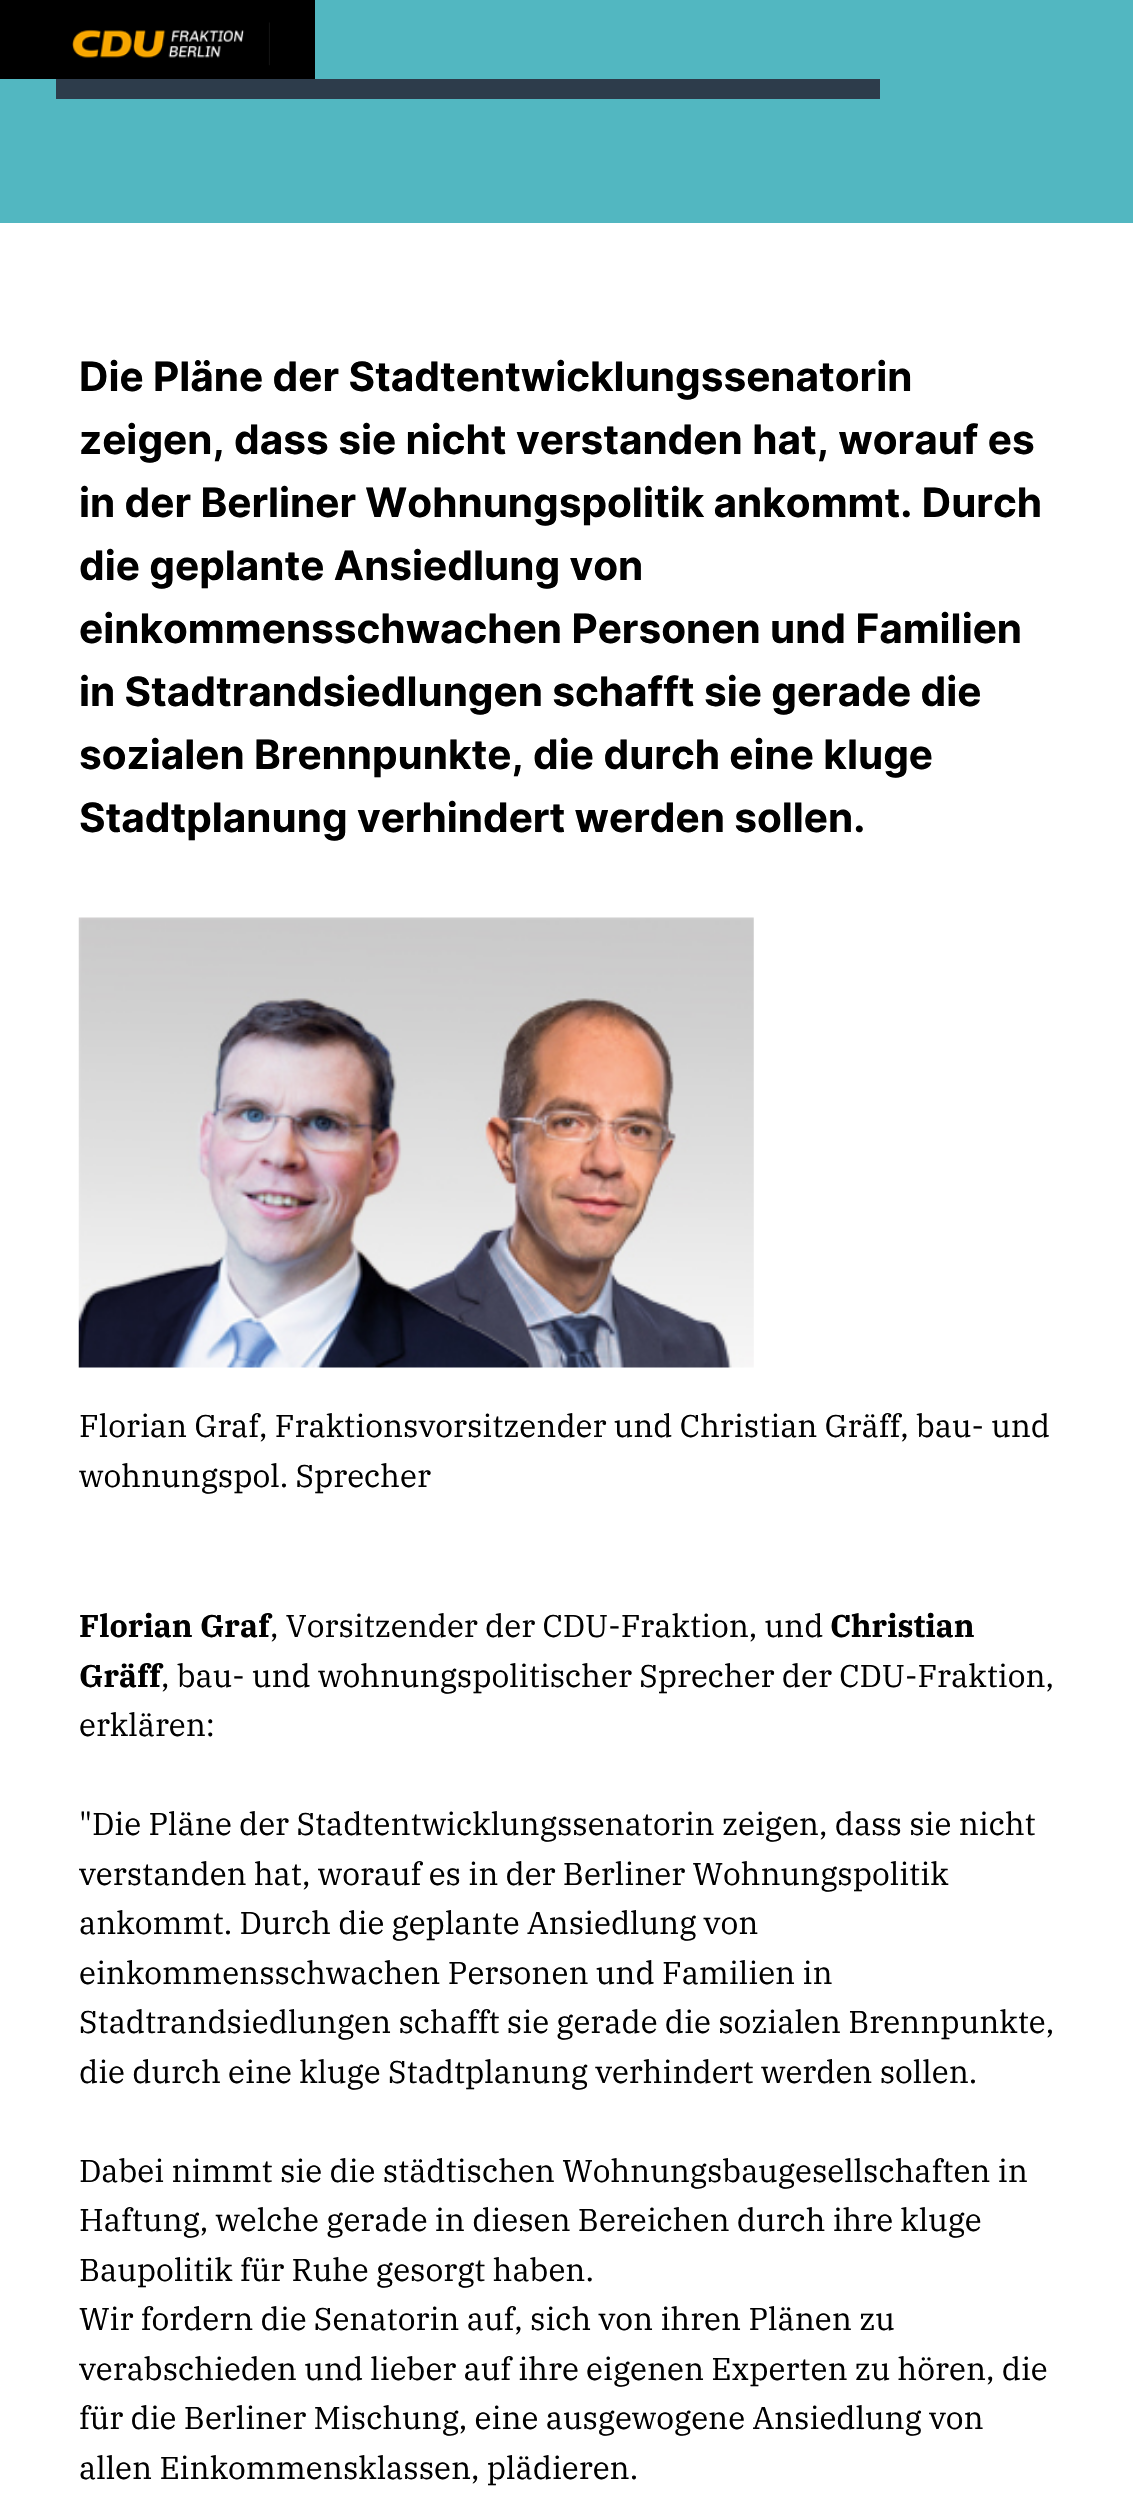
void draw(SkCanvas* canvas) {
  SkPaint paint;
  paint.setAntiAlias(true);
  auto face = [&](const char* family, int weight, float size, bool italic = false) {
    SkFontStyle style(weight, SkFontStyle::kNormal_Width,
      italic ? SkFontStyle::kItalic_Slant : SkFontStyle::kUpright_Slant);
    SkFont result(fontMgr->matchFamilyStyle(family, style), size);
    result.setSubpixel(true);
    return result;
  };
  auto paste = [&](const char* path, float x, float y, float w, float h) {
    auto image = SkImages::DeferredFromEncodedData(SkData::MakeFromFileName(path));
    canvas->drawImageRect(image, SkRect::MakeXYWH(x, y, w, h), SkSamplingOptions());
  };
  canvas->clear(0xffffffff);
  paint.setColor(0xff000000);
  canvas->drawRect(SkRect::MakeXYWH(0, 0, 315, 79), paint);
  paint.setColor(0xff52b7c1);
  canvas->drawRect(SkRect::MakeXYWH(315, 0, 818, 79), paint);
  paste("img/1.png", 72, 22, 198, 44);
  canvas->drawRect(SkRect::MakeXYWH(0, 79, 1133, 144), paint);
  paint.setColor(0xff2d3c4b);
  canvas->drawRect(SkRect::MakeXYWH(56, 79, 824, 20), paint);
  paste("img/2.png", 78, 917, 676, 451);
  auto f0 = face("Inter", 700, 40.5f);
  paint.setColor(0xff000000);
  {
    const struct { const char* s; float x, y; } items[] = {
      {"Die Pläne der Stadtentwicklungssenatorin", 79, 391},
      {"zeigen, dass sie nicht verstanden hat, worauf es", 79, 454},
      {"in der Berliner Wohnungspolitik ankommt. Durch", 79, 517},
      {"die geplante Ansiedlung von", 79, 580},
      {"einkommensschwachen Personen und Familien", 79, 643},
      {"in Stadtrandsiedlungen schafft sie gerade die", 79, 706},
      {"sozialen Brennpunkte, die durch eine kluge", 79, 769},
      {"Stadtplanung verhindert werden sollen.", 79, 832},
    };
    for (auto [s, x, y] : items) {
      canvas->drawString(s, x, y, f0, paint);
    }
  }
  auto f1 = face("IBM Plex Serif", 400, 31.5f);
  canvas->drawString("Florian Graf, Fraktionsvorsitzender und Christian Gräff, bau- und", 79, 1437, f1, paint);
  canvas->drawString("wohnungspol. Sprecher", 79, 1487, f1, paint);
  auto f2 = face("IBM Plex Serif", 700, 31.5f);
  canvas->drawString("Florian Graf", 79, 1637, f2, paint);
  canvas->drawString(", Vorsitzender der CDU-Fraktion, und", 270, 1637, f1, paint);
  canvas->drawString("Christian", 830, 1637, f2, paint);
  canvas->drawString("Gräff", 79, 1687, f2, paint);
  {
    const struct { const char* s; float x, y; } items[] = {
      {", bau- und wohnungspolitischer Sprecher der CDU-Fraktion,", 161, 1687},
      {"erklären:", 79, 1736},
      {"\"Die Pläne der Stadtentwicklungssenatorin zeigen, dass sie nicht", 79, 1835},
      {"verstanden hat, worauf es in der Berliner Wohnungspolitik", 79, 1885},
      {"ankommt. Durch die geplante Ansiedlung von", 79, 1934},
      {"einkommensschwachen Personen und Familien in", 79, 1984},
      {"Stadtrandsiedlungen schafft sie gerade die sozialen Brennpunkte,", 79, 2033},
      {"die durch eine kluge Stadtplanung verhindert werden sollen.", 79, 2083},
      {"Dabei nimmt sie die städtischen Wohnungsbaugesellschaften in", 79, 2182},
      {"Haftung, welche gerade in diesen Bereichen durch ihre kluge", 79, 2231},
      {"Baupolitik für Ruhe gesorgt haben.", 79, 2281},
      {"Wir fordern die Senatorin auf, sich von ihren Plänen zu", 79, 2330},
      {"verabschieden und lieber auf ihre eigenen Experten zu hören, die", 79, 2380},
      {"für die Berliner Mischung, eine ausgewogene Ansiedlung von", 79, 2429},
      {"allen Einkommensklassen, plädieren.", 79, 2479},
    };
    for (auto [s, x, y] : items) {
      canvas->drawString(s, x, y, f1, paint);
    }
  }
}
